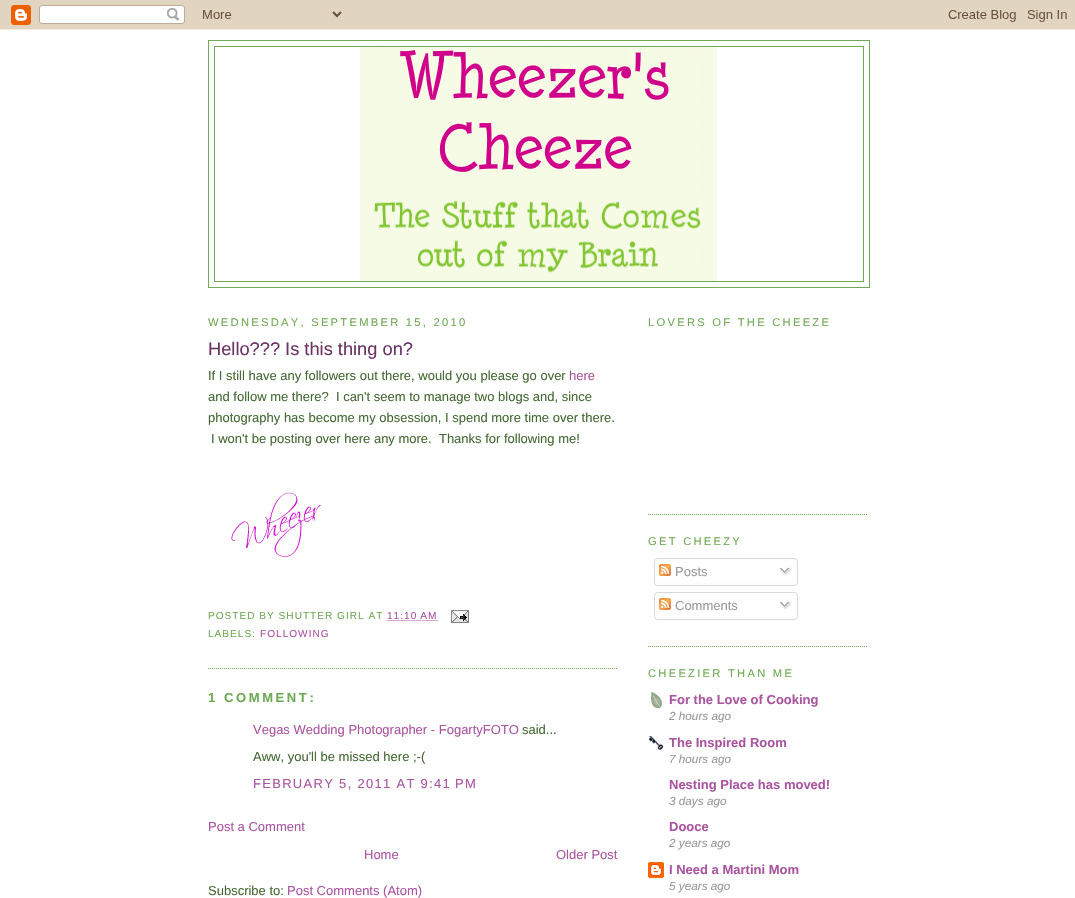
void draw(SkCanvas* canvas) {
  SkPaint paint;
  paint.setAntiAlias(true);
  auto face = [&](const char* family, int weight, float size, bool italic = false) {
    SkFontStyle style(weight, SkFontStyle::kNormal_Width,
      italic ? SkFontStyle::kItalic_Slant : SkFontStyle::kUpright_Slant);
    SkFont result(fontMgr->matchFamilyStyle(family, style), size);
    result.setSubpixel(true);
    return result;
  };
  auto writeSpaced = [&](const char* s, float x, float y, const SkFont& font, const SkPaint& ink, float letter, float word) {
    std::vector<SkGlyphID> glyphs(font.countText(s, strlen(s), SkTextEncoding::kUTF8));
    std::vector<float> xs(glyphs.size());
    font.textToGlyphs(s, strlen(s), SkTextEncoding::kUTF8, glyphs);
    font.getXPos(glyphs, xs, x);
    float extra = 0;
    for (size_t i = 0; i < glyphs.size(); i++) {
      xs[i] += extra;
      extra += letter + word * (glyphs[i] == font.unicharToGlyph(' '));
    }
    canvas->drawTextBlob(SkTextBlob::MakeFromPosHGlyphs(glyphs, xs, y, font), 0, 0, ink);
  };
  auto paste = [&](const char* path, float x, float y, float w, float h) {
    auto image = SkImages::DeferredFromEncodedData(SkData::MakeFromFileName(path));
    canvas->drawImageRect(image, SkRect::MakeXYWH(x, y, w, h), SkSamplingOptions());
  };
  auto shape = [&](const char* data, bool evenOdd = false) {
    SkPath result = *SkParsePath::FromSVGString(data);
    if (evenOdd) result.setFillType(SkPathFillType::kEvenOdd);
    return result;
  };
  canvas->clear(0xffffffff);
  paste("img/1.png", 0, 0, 1075, 30);
  paint.setStroke(true);
  paint.setStrokeWidth(1);
  paint.setColor(0xff70aa55);
  canvas->drawRect(SkRect::MakeXYWH(208.5f, 40.5f, 661, 247), paint);
  canvas->drawRect(SkRect::MakeXYWH(214.5f, 46.5f, 649, 235), paint);
  paste("img/2.png", 360, 47, 357, 234);
  paint.setPathEffect(SkDashPathEffect::Make({{1, 1}}, 0));
  canvas->drawPath(shape("M208 668.5H618"), paint);
  paint.setPathEffect(nullptr);
  paste("img/3.png", 231, 492, 90, 65);
  paint.setColor(0xffaa55a0);
  paint.setPathEffect(SkDashPathEffect::Make({{1, 1}}, 0));
  canvas->drawPath(shape("M387.5 620.5H438"), paint);
  paint.setPathEffect(nullptr);
  paste("img/4.png", 451, 610, 18, 13);
  paint.setColor(0xff70aa55);
  paint.setPathEffect(SkDashPathEffect::Make({{1, 1}}, 0));
  canvas->drawPath(shape("M648 514.5H868"), paint);
  paint.setPathEffect(nullptr);
  paint.setPathEffect(SkDashPathEffect::Make({{1, 1}}, 0));
  canvas->drawPath(shape("M648 646.5H868"), paint);
  paint.setPathEffect(nullptr);
  paste("img/5.png", 654, 558, 144, 25);
  paste("img/6.png", 659, 564, 12, 12);
  paste("img/7.png", 779, 567, 13, 9);
  paste("img/8.png", 654, 583, 144, 3);
  paste("img/5.png", 654, 592, 144, 25);
  paste("img/6.png", 659, 598, 12, 12);
  paste("img/7.png", 779, 601, 13, 9);
  paste("img/8.png", 654, 617, 144, 3);
  paste("img/9.png", 651, 692, 11, 16);
  paste("img/10.png", 649, 736, 14, 14);
  paste("img/11.png", 648, 862, 16, 16);
  auto f0 = face("Liberation Sans", 400, 11.2f);
  paint.setStroke(false);
  writeSpaced("WEDNESDAY, SEPTEMBER 15, 2010", 208, 326, f0, paint, 2.25f, 0);
  auto f1 = face("Liberation Sans", 400, 18.25f);
  paint.setColor(0xff6a3564);
  canvas->drawString("Hello?\077? Is this thing on?", 208, 355, f1, paint);
  auto f2 = face("Liberation Sans", 400, 13);
  paint.setColor(0xff466a35);
  canvas->drawString("If I still have any followers out there, would you please go over", 208, 380, f2, paint);
  paint.setColor(0xffaa55a0);
  canvas->drawString("here", 569, 380, f2, paint);
  paint.setColor(0xff466a35);
  {
    const struct { const char* s; float x, y; } items[] = {
      {"and follow me there?  I can't seem to manage two blogs and, since", 208, 401},
      {"photography has become my obsession, I spend more time over there.", 208, 422},
      {"I won't be posting over here any more.  Thanks for following me!", 211, 443},
    };
    for (auto [s, x, y] : items) {
      canvas->drawString(s, x, y, f2, paint);
    }
  }
  auto f3 = face("Liberation Sans", 400, 10.1f);
  paint.setColor(0xff70aa55);
  writeSpaced("POSTED BY SHUTTER GIRL AT", 208, 619, f3, paint, 1, 0);
  paint.setColor(0xffaa55a0);
  writeSpaced("11:10 AM", 387, 619, f3, paint, 1, 0);
  paint.setColor(0xff70aa55);
  writeSpaced("LABELS:", 208, 637, f3, paint, 1, 0);
  paint.setColor(0xffaa55a0);
  writeSpaced("FOLLOWING", 260, 637, f3, paint, 1, 0);
  auto f4 = face("Liberation Sans", 700, 13);
  paint.setColor(0xff70aa55);
  writeSpaced("1 COMMENT:", 208, 702, f4, paint, 2.6f, 0);
  paint.setColor(0xffaa55a0);
  canvas->drawString("Vegas Wedding Photographer - FogartyFOTO", 253, 734, f2, paint);
  paint.setColor(0xff466a35);
  canvas->drawString("said...", 522, 734, f2, paint);
  canvas->drawString("Aww, you'll be missed here ;-(", 253, 761, f2, paint);
  paint.setColor(0xffaa55a0);
  writeSpaced("FEBRUARY 5, 2011 AT 9:41 PM", 253, 788, f2, paint, 1.3f, 0);
  {
    const struct { const char* s; float x, y; } items[] = {
      {"Post a Comment", 208, 831},
      {"Home", 364, 859},
      {"Older Post", 556, 859},
    };
    for (auto [s, x, y] : items) {
      canvas->drawString(s, x, y, f2, paint);
    }
  }
  paint.setColor(0xff466a35);
  canvas->drawString("Subscribe to:", 208, 895, f2, paint);
  paint.setColor(0xffaa55a0);
  canvas->drawString("Post Comments (Atom)", 287, 895, f2, paint);
  paint.setColor(0xff70aa55);
  writeSpaced("LOVERS OF THE CHEEZE", 648, 326, f0, paint, 2.25f, 0);
  writeSpaced("GET CHEEZY", 648, 545, f0, paint, 2.25f, 0);
  paint.setColor(0xff999999);
  canvas->drawString("Posts", 675, 576, f2, paint);
  canvas->drawString("Comments", 675, 610, f2, paint);
  paint.setColor(0xff70aa55);
  writeSpaced("CHEEZIER THAN ME", 648, 677, f0, paint, 2.25f, 0);
  paint.setColor(0xffaa55a0);
  canvas->drawString("For the Love of Cooking", 669, 704, f4, paint);
  auto f5 = face("Liberation Sans", 400, 11.75f, true);
  paint.setColor(0xff999999);
  canvas->drawString("2 hours ago", 669, 720, f5, paint);
  paint.setColor(0xffaa55a0);
  canvas->drawString("The Inspired Room", 669, 747, f4, paint);
  paint.setColor(0xff999999);
  canvas->drawString("7 hours ago", 669, 763, f5, paint);
  paint.setColor(0xffaa55a0);
  canvas->drawString("Nesting Place has moved!", 669, 789, f4, paint);
  paint.setColor(0xff999999);
  canvas->drawString("3 days ago", 669, 805, f5, paint);
  paint.setColor(0xffaa55a0);
  canvas->drawString("Dooce", 669, 831, f4, paint);
  paint.setColor(0xff999999);
  canvas->drawString("2 years ago", 669, 847, f5, paint);
  paint.setColor(0xffaa55a0);
  canvas->drawString("I Need a Martini Mom", 669, 874, f4, paint);
  paint.setColor(0xff999999);
  canvas->drawString("5 years ago", 669, 890, f5, paint);
}
